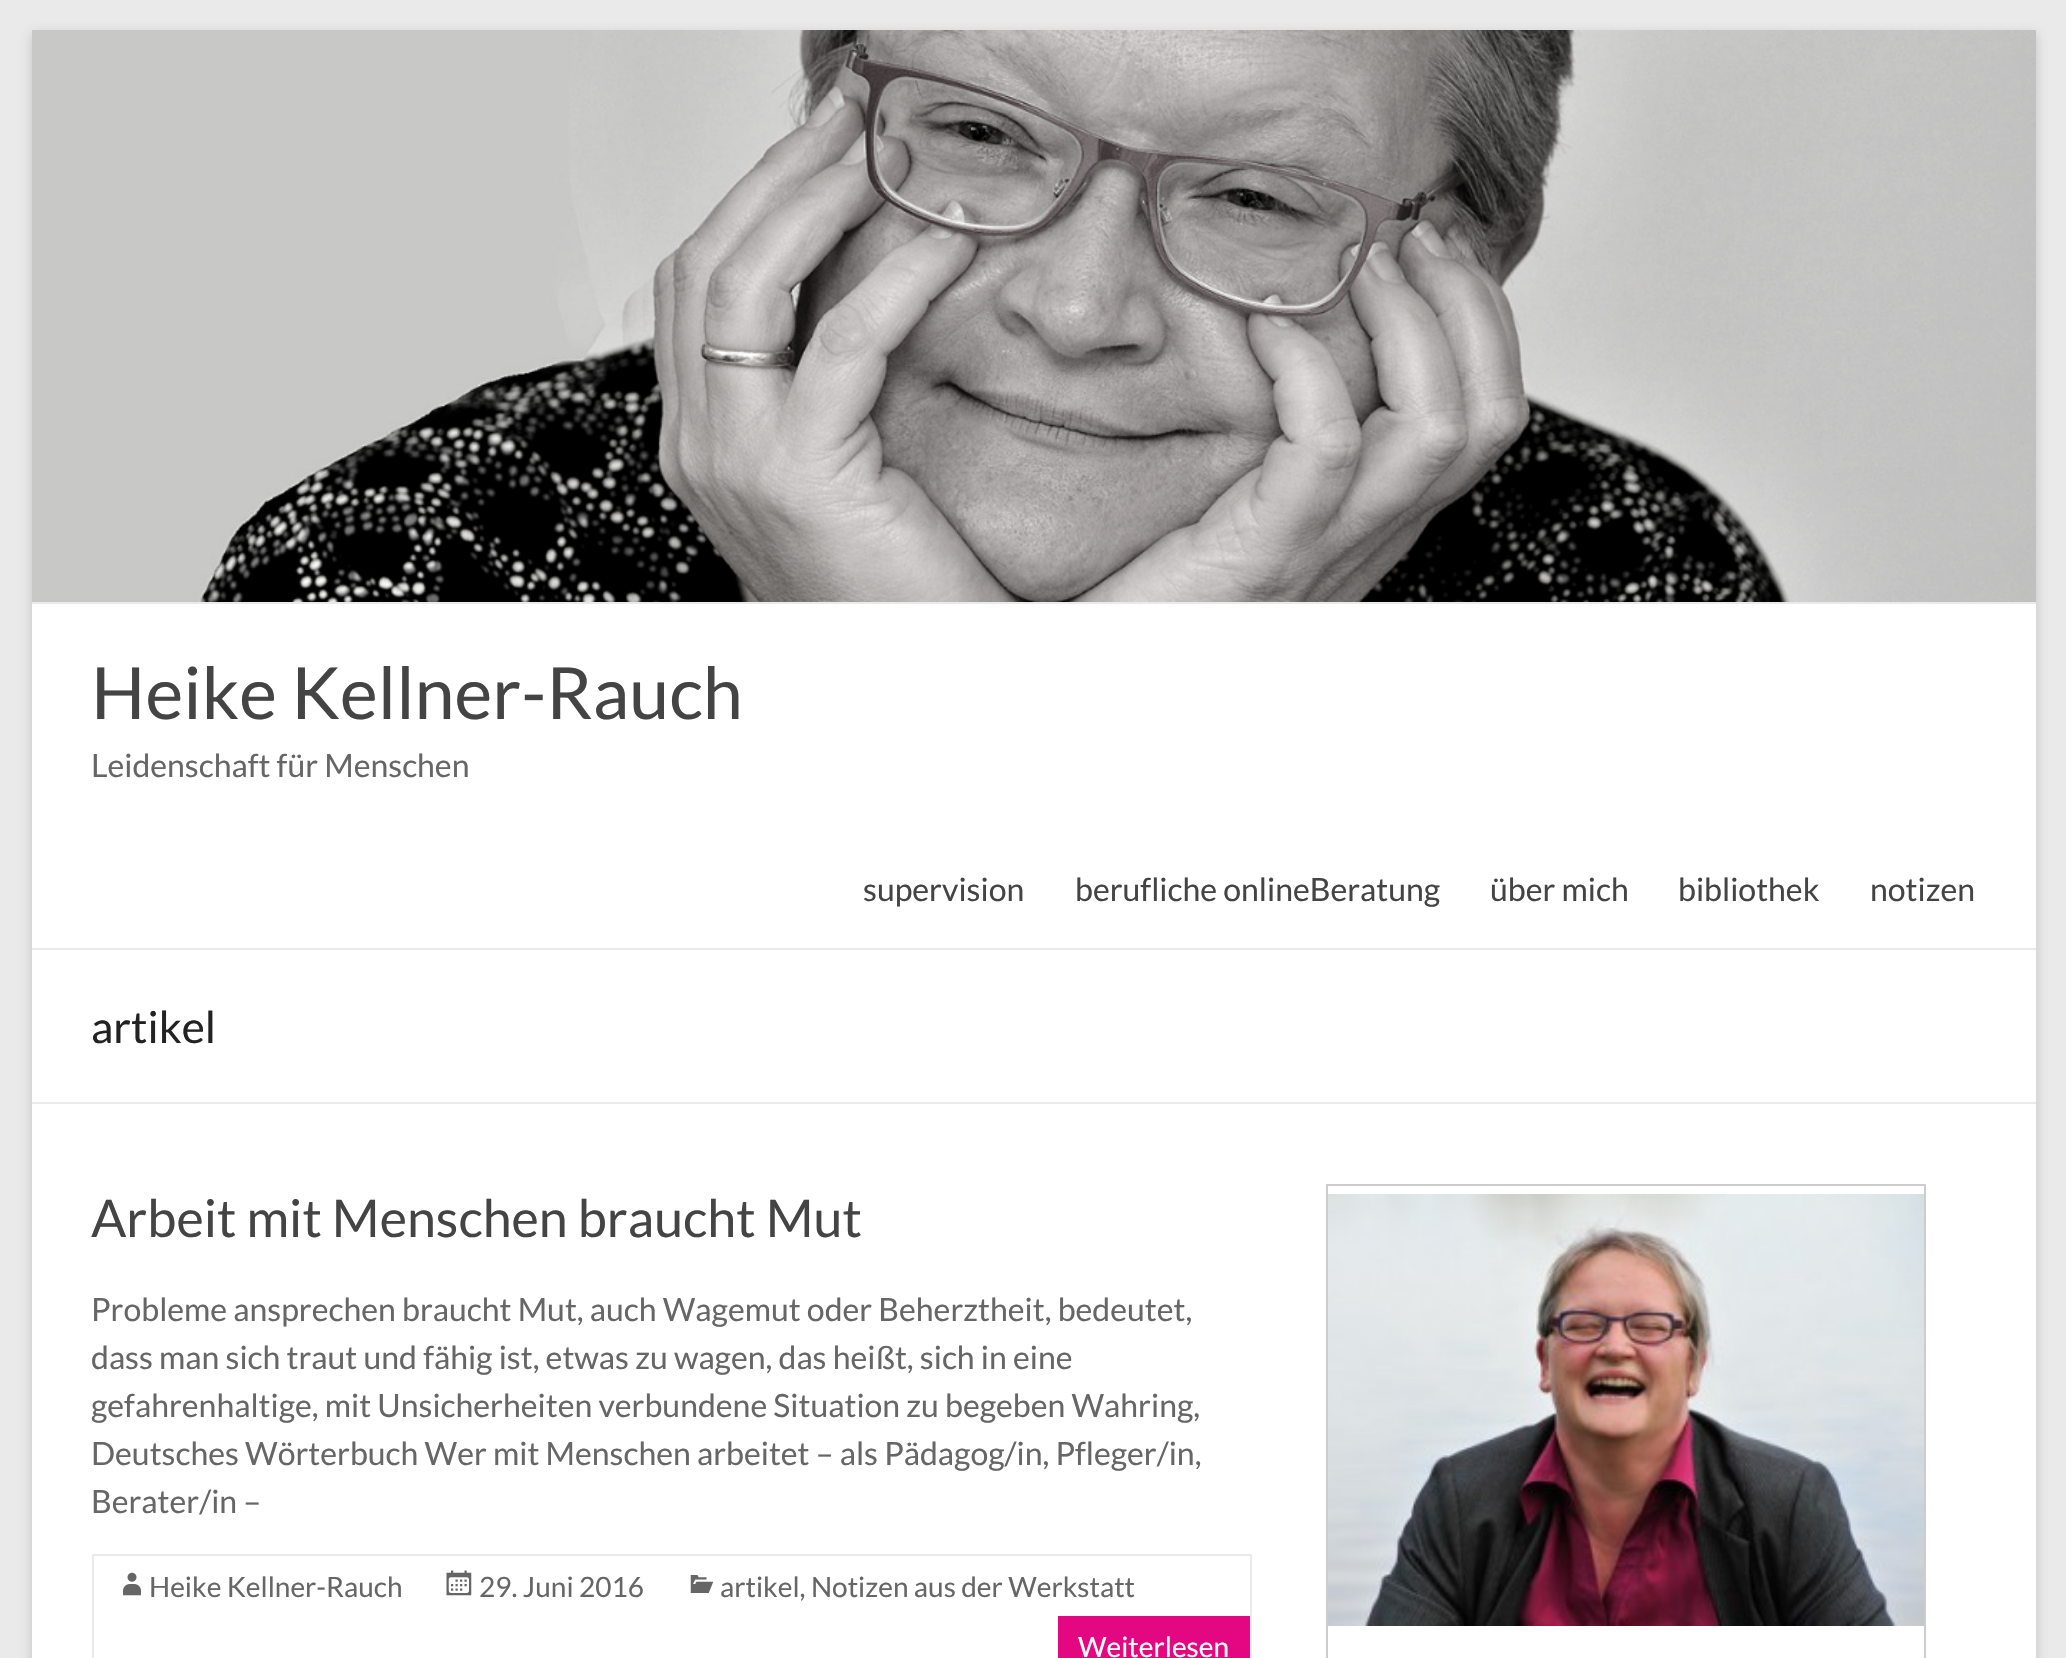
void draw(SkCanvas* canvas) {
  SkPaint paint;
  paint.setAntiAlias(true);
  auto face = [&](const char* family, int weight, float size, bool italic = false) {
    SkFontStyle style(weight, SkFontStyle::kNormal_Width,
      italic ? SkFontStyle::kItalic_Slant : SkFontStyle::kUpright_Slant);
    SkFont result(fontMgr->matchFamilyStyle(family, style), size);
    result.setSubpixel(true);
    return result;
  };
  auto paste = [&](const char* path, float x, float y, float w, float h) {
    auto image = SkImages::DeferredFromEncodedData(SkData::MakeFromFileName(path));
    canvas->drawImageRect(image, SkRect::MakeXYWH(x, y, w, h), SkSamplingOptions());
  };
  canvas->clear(0xffeaeaea);
  paint.setColor(0x4d646464);
  paint.setMaskFilter(SkMaskFilter::MakeBlur(kNormal_SkBlurStyle, 6));
  canvas->drawRect(SkRect::MakeXYWH(32, 34, 2004, 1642), paint);
  paint.setMaskFilter(nullptr);
  paint.setColor(0xffffffff);
  canvas->drawRect(SkRect::MakeXYWH(32, 604, 2004, 1054), paint);
  paste("img/1.png", 32, 30, 2004, 572);
  {
    const struct { float x, y, w, h; SkColor color; } items[] = {
      {32, 602, 2004, 2, 0xffeaeaea},
      {32, 948, 2004, 2, 0xffeaeaea},
      {32, 1102, 2004, 2, 0xffeaeaea},
    };
    for (auto [x, y, w, h, color] : items) {
      paint.setColor(color);
      canvas->drawRect(SkRect::MakeXYWH(x, y, w, h), paint);
    }
  }
  paint.setStroke(true);
  paint.setStrokeWidth(2);
  canvas->drawRect(SkRect::MakeXYWH(93, 1555, 1158, 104), paint);
  paste("img/2.png", 123, 1572, 18, 24);
  paste("img/3.png", 446, 1570, 26, 26);
  paste("img/4.png", 690, 1575, 24, 18);
  paint.setStroke(false);
  paint.setColor(0xffe30782);
  canvas->drawRect(SkRect::MakeXYWH(1058, 1616, 192, 42), paint);
  paint.setStroke(true);
  paint.setColor(0xffcccccc);
  canvas->drawRect(SkRect::MakeXYWH(1327, 1185, 598, 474), paint);
  paste("img/5.png", 1328, 1194, 596, 432);
  auto f0 = face("Lato", 400, 72);
  paint.setStroke(false);
  paint.setColor(0xff444444);
  canvas->drawString("Heike Kellner-Rauch", 91, 719, f0, paint);
  auto f1 = face("Lato", 400, 32);
  paint.setColor(0xff666666);
  canvas->drawString("Leidenschaft für Menschen", 91, 777, f1, paint);
  paint.setColor(0xff444444);
  {
    const struct { const char* s; float x, y; } items[] = {
      {"supervision", 863, 901},
      {"berufliche onlineBeratung", 1075, 901},
      {"über mich", 1490, 901},
      {"bibliothek", 1678, 901},
      {"notizen", 1870, 901},
    };
    for (auto [s, x, y] : items) {
      canvas->drawString(s, x, y, f1, paint);
    }
  }
  auto f2 = face("Lato", 400, 44);
  paint.setColor(0xff222222);
  canvas->drawString("artikel", 91, 1043, f2, paint);
  auto f3 = face("Lato", 400, 52);
  paint.setColor(0xff444444);
  canvas->drawString("Arbeit mit Menschen braucht Mut", 91, 1237, f3, paint);
  paint.setColor(0xff666666);
  {
    const struct { const char* s; float x, y; } items[] = {
      {"Probleme ansprechen braucht Mut, auch Wagemut oder Beherztheit, bedeutet,", 91, 1321},
      {"dass man sich traut und fähig ist, etwas zu wagen, das heißt, sich in eine", 91, 1369},
      {"gefahrenhaltige, mit Unsicherheiten verbundene Situation zu begeben Wahring,", 91, 1417},
      {"Deutsches Wörterbuch Wer mit Menschen arbeitet – als Pädagog/in, Pfleger/in,", 91, 1465},
      {"Berater/in –", 91, 1513},
    };
    for (auto [s, x, y] : items) {
      canvas->drawString(s, x, y, f1, paint);
    }
  }
  auto f4 = face("Lato", 400, 28);
  {
    const struct { const char* s; float x, y; } items[] = {
      {"Heike Kellner-Rauch", 149, 1597},
      {"29. Juni 2016", 479, 1597},
      {"artikel, Notizen aus der Werkstatt", 720, 1597},
    };
    for (auto [s, x, y] : items) {
      canvas->drawString(s, x, y, f4, paint);
    }
  }
  paint.setColor(0xffffffff);
  canvas->drawString("Weiterlesen", 1078, 1657, f4, paint);
}
